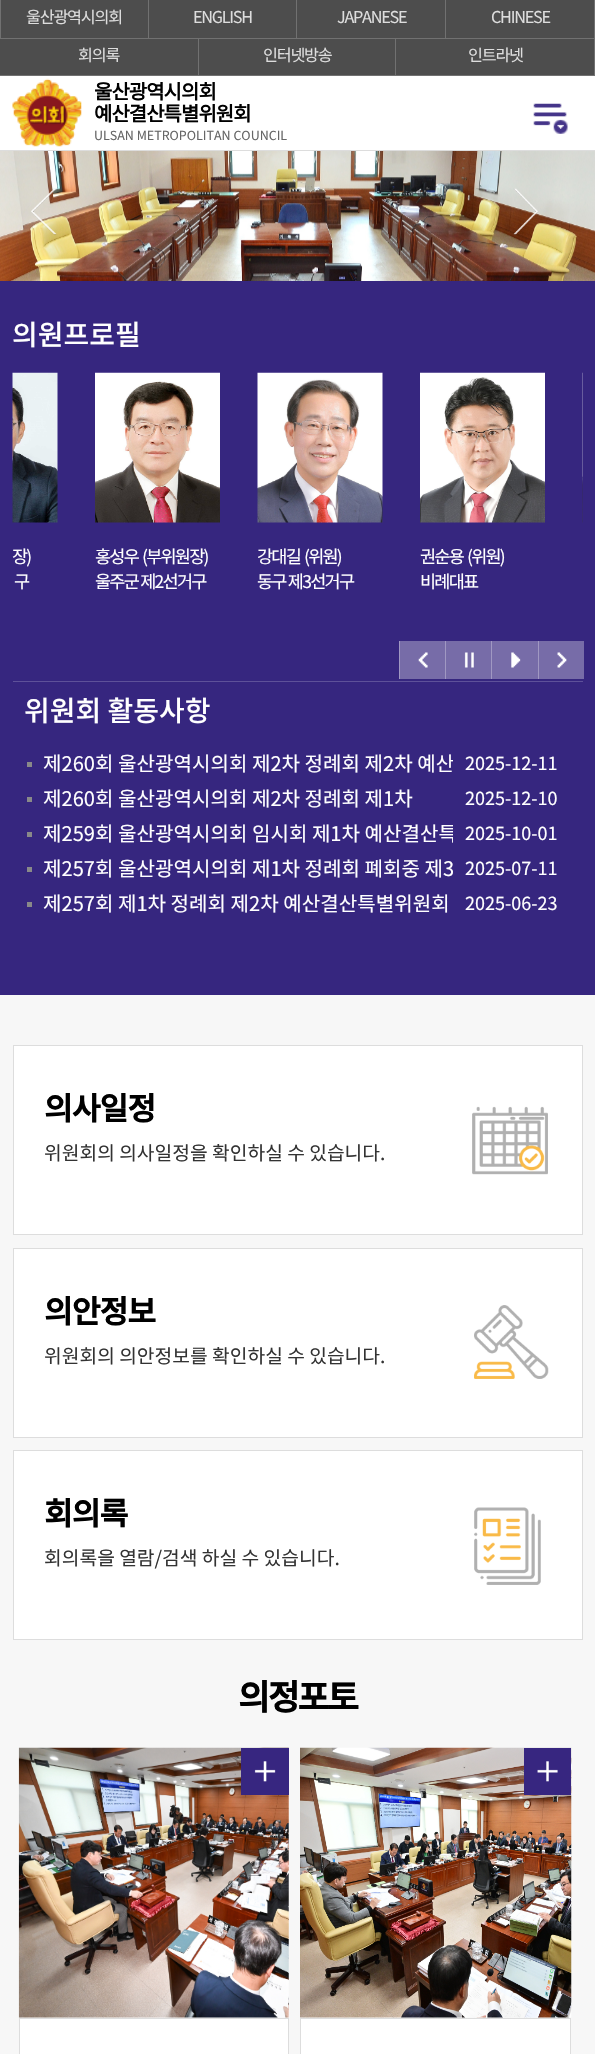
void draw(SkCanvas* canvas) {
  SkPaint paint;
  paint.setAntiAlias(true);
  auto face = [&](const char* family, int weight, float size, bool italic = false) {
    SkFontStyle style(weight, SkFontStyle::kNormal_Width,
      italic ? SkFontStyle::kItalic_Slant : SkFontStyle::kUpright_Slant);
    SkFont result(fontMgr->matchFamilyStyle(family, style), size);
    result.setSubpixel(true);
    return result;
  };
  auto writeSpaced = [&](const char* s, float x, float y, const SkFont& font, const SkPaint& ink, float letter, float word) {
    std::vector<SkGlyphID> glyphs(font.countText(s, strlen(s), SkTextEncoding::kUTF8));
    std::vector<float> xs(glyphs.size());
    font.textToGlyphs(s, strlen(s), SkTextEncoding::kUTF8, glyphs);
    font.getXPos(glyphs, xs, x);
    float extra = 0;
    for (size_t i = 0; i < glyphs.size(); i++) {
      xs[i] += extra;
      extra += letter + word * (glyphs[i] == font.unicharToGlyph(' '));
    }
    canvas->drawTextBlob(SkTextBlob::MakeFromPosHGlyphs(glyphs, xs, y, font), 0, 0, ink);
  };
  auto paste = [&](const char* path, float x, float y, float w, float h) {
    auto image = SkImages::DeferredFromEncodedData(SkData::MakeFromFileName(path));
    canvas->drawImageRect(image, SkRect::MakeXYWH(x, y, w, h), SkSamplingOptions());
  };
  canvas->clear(0xffffffff);
  {
    const struct { float x, y, w, h; SkColor color; } items[] = {
      {1, 0, 593, 38, 0xff4d4d4d},
      {148, 0, 1, 39, 0xff717171},
      {0, 38, 149, 1, 0xff717171},
      {0, 0, 1, 39, 0xff717171},
      {296, 0, 1, 39, 0xff717171},
      {149, 38, 149, 1, 0xff717171},
      {445, 0, 1, 39, 0xff717171},
      {298, 38, 148, 1, 0xff717171},
      {594, 0, 1, 76, 0xff717171},
      {446, 38, 149, 1, 0xff717171},
      {0, 39, 198, 36, 0xff4d4d4d},
      {198, 39, 1, 37, 0xff717171},
      {0, 75, 199, 1, 0xff717171},
      {199, 39, 196, 36, 0xff4d4d4d},
      {395, 39, 1, 37, 0xff717171},
      {199, 75, 396, 1, 0xff717171},
      {396, 39, 198, 36, 0xff4d4d4d},
    };
    for (auto [x, y, w, h, color] : items) {
      paint.setColor(color);
      canvas->drawRect(SkRect::MakeXYWH(x, y, w, h), paint);
    }
  }
  paste("img/1.png", 12, 78, 70, 69);
  paste("img/2.png", 533, 103, 35, 31);
  paint.setColor(0xffdddddd);
  canvas->drawRect(SkRect::MakeXYWH(0, 150, 595, 1), paint);
  paste("img/3.png", 0, 151, 595, 130);
  paste("img/4.png", 31, 189, 26, 46);
  paste("img/5.png", 513, 188, 25, 47);
  paint.setColor(0xff36267f);
  canvas->drawRect(SkRect::MakeXYWH(0, 281, 595, 714), paint);
  paint.setColor(0xff5e5199);
  canvas->drawRect(SkRect::MakeXYWH(13, 681, 570, 1), paint);
  paste("img/6.png", 582, 372, 1, 151);
  paste("img/7.png", 12, 372, 46, 151);
  paste("img/8.png", 95, 372, 125, 151);
  paste("img/9.png", 257, 372, 126, 151);
  paste("img/10.png", 420, 372, 125, 151);
  paint.setColor(0xff776ca8);
  canvas->drawRect(SkRect::MakeXYWH(400, 641, 45, 38), paint);
  paste("img/11.png", 418, 652, 10, 16);
  paint.setColor(0xffa098c2);
  canvas->drawRect(SkRect::MakeXYWH(399, 641, 1, 38), paint);
  paint.setColor(0xff776ca8);
  canvas->drawRect(SkRect::MakeXYWH(446, 641, 45, 38), paint);
  paste("img/12.png", 464, 652, 10, 16);
  paint.setColor(0xffa098c2);
  canvas->drawRect(SkRect::MakeXYWH(445, 641, 1, 38), paint);
  paint.setColor(0xff776ca8);
  canvas->drawRect(SkRect::MakeXYWH(492, 641, 46, 38), paint);
  paste("img/13.png", 511, 652, 10, 16);
  paint.setColor(0xffa098c2);
  canvas->drawRect(SkRect::MakeXYWH(491, 641, 1, 38), paint);
  paint.setColor(0xff776ca8);
  canvas->drawRect(SkRect::MakeXYWH(539, 641, 45, 38), paint);
  paste("img/14.png", 557, 652, 10, 16);
  {
    const struct { float x, y, w, h; SkColor color; } items[] = {
      {538, 641, 1, 38, 0xffa098c2},
      {27, 762, 5, 5, 0xff898989},
      {27, 797, 5, 5, 0xff898989},
      {27, 832, 5, 5, 0xff898989},
      {27, 867, 5, 5, 0xff898989},
      {27, 902, 5, 5, 0xff898989},
      {0, 995, 595, 1059, 0xfff7f7f7},
    };
    for (auto [x, y, w, h, color] : items) {
      paint.setColor(color);
      canvas->drawRect(SkRect::MakeXYWH(x, y, w, h), paint);
    }
  }
  paint.setColor(0xffffffff);
  canvas->drawRect(SkRect::MakeXYWH(13.5f, 1045.5f, 569, 189), paint);
  paint.setStroke(true);
  paint.setStrokeWidth(1);
  paint.setColor(0xffdddddd);
  canvas->drawRect(SkRect::MakeXYWH(13.5f, 1045.5f, 569, 189), paint);
  paste("img/15.png", 472, 1106, 76, 69);
  paint.setStroke(false);
  paint.setColor(0xffffffff);
  canvas->drawRect(SkRect::MakeXYWH(13.5f, 1248.5f, 569, 189), paint);
  paint.setStroke(true);
  paint.setColor(0xffdddddd);
  canvas->drawRect(SkRect::MakeXYWH(13.5f, 1248.5f, 569, 189), paint);
  paste("img/16.png", 474, 1305, 75, 74);
  paint.setStroke(false);
  paint.setColor(0xffffffff);
  canvas->drawRect(SkRect::MakeXYWH(13.5f, 1450.5f, 569, 189), paint);
  paint.setStroke(true);
  paint.setColor(0xffdddddd);
  canvas->drawRect(SkRect::MakeXYWH(13.5f, 1450.5f, 569, 189), paint);
  paste("img/17.png", 474, 1507, 67, 78);
  paste("img/18.png", 18, 1747, 271, 271);
  paint.setStroke(false);
  paint.setColor(0xffffffff);
  canvas->drawRect(SkRect::MakeXYWH(19.5f, 2018.5f, 269, 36), paint);
  paint.setStroke(true);
  paint.setColor(0xffdddddd);
  canvas->drawRect(SkRect::MakeXYWH(19.5f, 2018.5f, 269, 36), paint);
  paint.setStroke(false);
  paint.setColor(0xff372680);
  canvas->drawRect(SkRect::MakeXYWH(241, 1748, 48, 47), paint);
  paste("img/19.png", 254, 1761, 22, 21);
  paste("img/20.png", 300, 1747, 272, 271);
  paint.setColor(0xffffffff);
  canvas->drawRect(SkRect::MakeXYWH(300.5f, 2018.5f, 270, 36), paint);
  paint.setStroke(true);
  paint.setColor(0xffdddddd);
  canvas->drawRect(SkRect::MakeXYWH(300.5f, 2018.5f, 270, 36), paint);
  paint.setStroke(false);
  paint.setColor(0xff372680);
  canvas->drawRect(SkRect::MakeXYWH(524, 1748, 47, 47), paint);
  paste("img/21.png", 537, 1761, 21, 21);
  auto f0 = face("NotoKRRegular", 400, 16.25f);
  paint.setColor(0xffdddddd);
  {
    const struct { const char* s; float x, y; } items[] = {
      {"울산광역시의회", 26, 23},
      {"ENGLISH", 193, 23},
      {"JAPANESE", 337, 23},
      {"CHINESE", 491, 23},
      {"회의록", 78, 61},
      {"인터넷방송", 263, 61},
      {"인트라넷", 468, 61},
    };
    for (auto [s, x, y] : items) {
      writeSpaced(s, x, y, f0, paint, -1.25f, 0);
    }
  }
  auto f1 = face("NotoKRRegular", 700, 20);
  paint.setColor(0xff000000);
  writeSpaced("울산광역시의회", 94, 99, f1, paint, -1, 0);
  writeSpaced("예산결산특별위원회", 94, 121, f1, paint, -1, 0);
  auto f2 = face("NotoKRRegular", 400, 12.5f);
  paint.setColor(0xff666666);
  canvas->drawString("ULSAN METROPOLITAN COUNCIL", 94, 140, f2, paint);
  auto f3 = face("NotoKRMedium", 500, 28);
  paint.setColor(0xffffffff);
  canvas->drawString("의원프로필", 12, 345, f3, paint);
  auto f4 = face("NotoKRRegular", 400, 17.5f);
  {
    const struct { const char* s; float x, y; } items[] = {
      {"장)", 12, 563},
      {"구", 14, 588},
      {"홍성우", 95, 563},
      {"(부위원장)", 142, 563},
      {"울주군 제2선거구", 95, 588},
      {"강대길", 257, 563},
      {"(위원)", 304, 563},
      {"동구 제3선거구", 257, 588},
      {"권순용", 420, 563},
      {"(위원)", 467, 563},
      {"비례대표", 420, 588},
    };
    for (auto [s, x, y] : items) {
      writeSpaced(s, x, y, f4, paint, -1.75f, 0);
    }
  }
  canvas->drawString("위원회 활동사항", 24, 721, f3, paint);
  auto f5 = face("NotoKRRegular", 400, 20.1f);
  canvas->drawString("제260회 울산광역시의회 제2차 정례회 제2차 예산", 43, 771, f5, paint);
  paint.setColor(0xff36267f);
  canvas->drawRect(SkRect::MakeXYWH(453, 760, 2, 2), paint);
  auto f6 = face("NotoKRRegular", 400, 18);
  paint.setColor(0xffffffff);
  canvas->drawString("2025-12-11", 465, 770, f6, paint);
  canvas->drawString("제260회 울산광역시의회 제2차 정례회 제1차", 43, 806, f5, paint);
  canvas->drawString("2025-12-10", 465, 805, f6, paint);
  canvas->drawString("제259회 울산광역시의회 임시회 제1차 예산결산특", 43, 841, f5, paint);
  paint.setColor(0xff36267f);
  canvas->drawRect(SkRect::MakeXYWH(453, 824, 4, 19), paint);
  paint.setColor(0xffffffff);
  canvas->drawString("2025-10-01", 465, 840, f6, paint);
  canvas->drawString("제257회 울산광역시의회 제1차 정례회 폐회중 제3", 43, 876, f5, paint);
  paint.setColor(0xff36267f);
  canvas->drawRect(SkRect::MakeXYWH(453, 863, 1, 12), paint);
  paint.setColor(0xffffffff);
  canvas->drawString("2025-07-11", 465, 875, f6, paint);
  canvas->drawString("제257회 제1차 정례회 제2차 예산결산특별위원회", 43, 911, f5, paint);
  canvas->drawString("2025-06-23", 465, 910, f6, paint);
  auto f7 = face("NotoKRMedium", 700, 31.5f);
  paint.setColor(0xff000000);
  writeSpaced("의사일정", 44, 1120, f7, paint, -1.25f, 0);
  auto f8 = face("NotoKRRegular", 400, 19.25f);
  paint.setColor(0xff333333);
  canvas->drawString("위원회의 의사일정을 확인하실 수 있습니다.", 44, 1160, f8, paint);
  paint.setColor(0xff000000);
  writeSpaced("의안정보", 44, 1323, f7, paint, -1.25f, 0);
  paint.setColor(0xff333333);
  canvas->drawString("위원회의 의안정보를 확인하실 수 있습니다.", 44, 1363, f8, paint);
  paint.setColor(0xff000000);
  writeSpaced("회의록", 44, 1525, f7, paint, -1.25f, 0);
  paint.setColor(0xff333333);
  canvas->drawString("회의록을 열람/검색 하실 수 있습니다.", 44, 1565, f8, paint);
  auto f9 = face("NotoKRMedium", 700, 35);
  paint.setColor(0xff000000);
  writeSpaced("의정포토", 238, 1710, f9, paint, -2.5f, 0);
}
